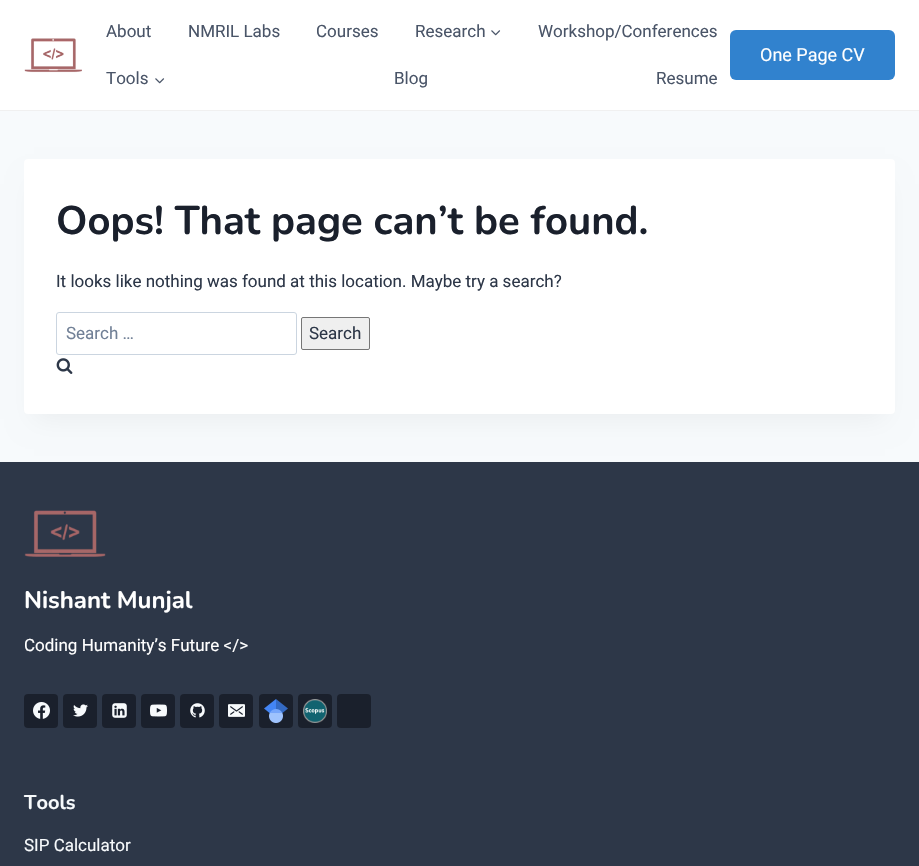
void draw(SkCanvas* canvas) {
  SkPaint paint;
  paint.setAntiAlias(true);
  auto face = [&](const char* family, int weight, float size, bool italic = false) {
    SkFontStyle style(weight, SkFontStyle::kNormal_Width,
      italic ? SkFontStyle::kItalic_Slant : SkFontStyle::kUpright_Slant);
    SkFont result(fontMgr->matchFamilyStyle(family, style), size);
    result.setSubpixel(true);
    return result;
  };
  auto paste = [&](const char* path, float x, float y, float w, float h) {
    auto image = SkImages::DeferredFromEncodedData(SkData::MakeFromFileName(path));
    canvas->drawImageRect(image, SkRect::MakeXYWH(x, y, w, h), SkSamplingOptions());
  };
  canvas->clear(0xfff7fafc);
  paint.setColor(0xffffffff);
  canvas->drawRect(SkRect::MakeXYWH(0, 0, 919, 110), paint);
  paint.setColor(0xfff0f0f0);
  canvas->drawRect(SkRect::MakeXYWH(0, 110, 919, 1), paint);
  paste("img/1.png", 24, 38, 58, 35);
  paste("img/2.png", 491, 30, 10, 6);
  paste("img/2.png", 155, 78, 10, 6);
  paint.setColor(0xff3182ce);
  canvas->drawRoundRect(SkRect::MakeXYWH(730, 30, 165, 50), 6, 6, paint);
  paint.setColor(0x0d000000);
  paint.setMaskFilter(SkMaskFilter::MakeBlur(kNormal_SkBlurStyle, 12.5f));
  canvas->drawRect(SkRect::MakeXYWH(34, 184, 851, 235), paint);
  paint.setMaskFilter(nullptr);
  paint.setColor(0xffffffff);
  canvas->drawRoundRect(SkRect::MakeXYWH(24, 159, 871, 255), 4, 4, paint);
  paint.setStroke(true);
  paint.setStrokeWidth(1);
  paint.setColor(0xffcbd5e0);
  canvas->drawRoundRect(SkRect::MakeXYWH(56.5f, 312.5f, 240, 42), 2.5f, 2.5f, paint);
  paint.setStroke(false);
  paint.setColor(0xffefefef);
  canvas->drawRoundRect(SkRect::MakeXYWH(301.5f, 317.5f, 68, 32), 1.5f, 1.5f, paint);
  paint.setStroke(true);
  paint.setColor(0xff767676);
  canvas->drawRoundRect(SkRect::MakeXYWH(301.5f, 317.5f, 68, 32), 1.5f, 1.5f, paint);
  paste("img/3.png", 56, 358, 17, 16);
  paint.setStroke(false);
  paint.setColor(0xff2d3748);
  canvas->drawRect(SkRect::MakeXYWH(0, 462, 919, 404), paint);
  paste("img/4.png", 24, 510, 82, 47);
  paint.setColor(0xff1a202c);
  canvas->drawRoundRect(SkRect::MakeXYWH(24, 694, 34, 34), 4, 4, paint);
  paste("img/5.png", 33, 702, 17, 17);
  canvas->drawRoundRect(SkRect::MakeXYWH(63, 694, 34, 34), 4, 4, paint);
  paste("img/6.png", 73, 704, 15, 13);
  canvas->drawRoundRect(SkRect::MakeXYWH(102, 694, 34, 34), 4, 4, paint);
  paste("img/7.png", 112, 703, 15, 15);
  canvas->drawRoundRect(SkRect::MakeXYWH(141, 694, 34, 34), 4, 4, paint);
  paste("img/8.png", 150, 704, 17, 13);
  canvas->drawRoundRect(SkRect::MakeXYWH(180, 694, 34, 34), 4, 4, paint);
  paste("img/9.png", 190, 703, 15, 15);
  canvas->drawRoundRect(SkRect::MakeXYWH(219, 694, 34, 34), 4, 4, paint);
  paste("img/10.png", 228, 704, 17, 13);
  canvas->drawRoundRect(SkRect::MakeXYWH(259, 694, 34, 34), 4, 4, paint);
  paste("img/11.png", 264, 699, 24, 24);
  canvas->drawRoundRect(SkRect::MakeXYWH(298, 694, 34, 34), 4, 4, paint);
  paste("img/12.png", 303, 699, 24, 24);
  canvas->drawRoundRect(SkRect::MakeXYWH(337, 694, 34, 34), 4, 4, paint);
  auto f0 = face("Roboto", 400, 17);
  paint.setColor(0xff4a5568);
  {
    const struct { const char* s; float x, y; } items[] = {
      {"About", 106, 37},
      {"NMRIL Labs", 188, 37},
      {"Courses", 316, 37},
      {"Research", 415, 37},
      {"Workshop/Conferences", 538, 37},
      {"Tools", 106, 84},
      {"Blog", 394, 84},
      {"Resume", 656, 84},
    };
    for (auto [s, x, y] : items) {
      canvas->drawString(s, x, y, f0, paint);
    }
  }
  auto f1 = face("Roboto", 400, 18);
  paint.setColor(0xffffffff);
  canvas->drawString("One Page CV", 760, 61, f1, paint);
  auto f2 = face("Nunito", 700, 40);
  paint.setColor(0xff1a202c);
  canvas->drawString("Oops! That page can’t be found.", 56, 234, f2, paint);
  paint.setColor(0xff2d3748);
  canvas->drawString("It looks like nothing was found at this location. Maybe try a search?", 56, 287, f0, paint);
  paint.setColor(0xff718096);
  canvas->drawString("Search …", 66, 339, f0, paint);
  paint.setColor(0xff2d3748);
  canvas->drawString("Search", 309, 339, f0, paint);
  auto f3 = face("Nunito", 700, 24);
  paint.setColor(0xffffffff);
  canvas->drawString("Nishant Munjal", 24, 608, f3, paint);
  canvas->drawString("Coding Humanity’s Future </>", 24, 651, f0, paint);
  auto f4 = face("Nunito", 700, 20);
  paint.setColor(0xfff7fafc);
  canvas->drawString("Tools", 24, 809, f4, paint);
  canvas->drawString("SIP Calculator", 24, 851, f0, paint);
}
